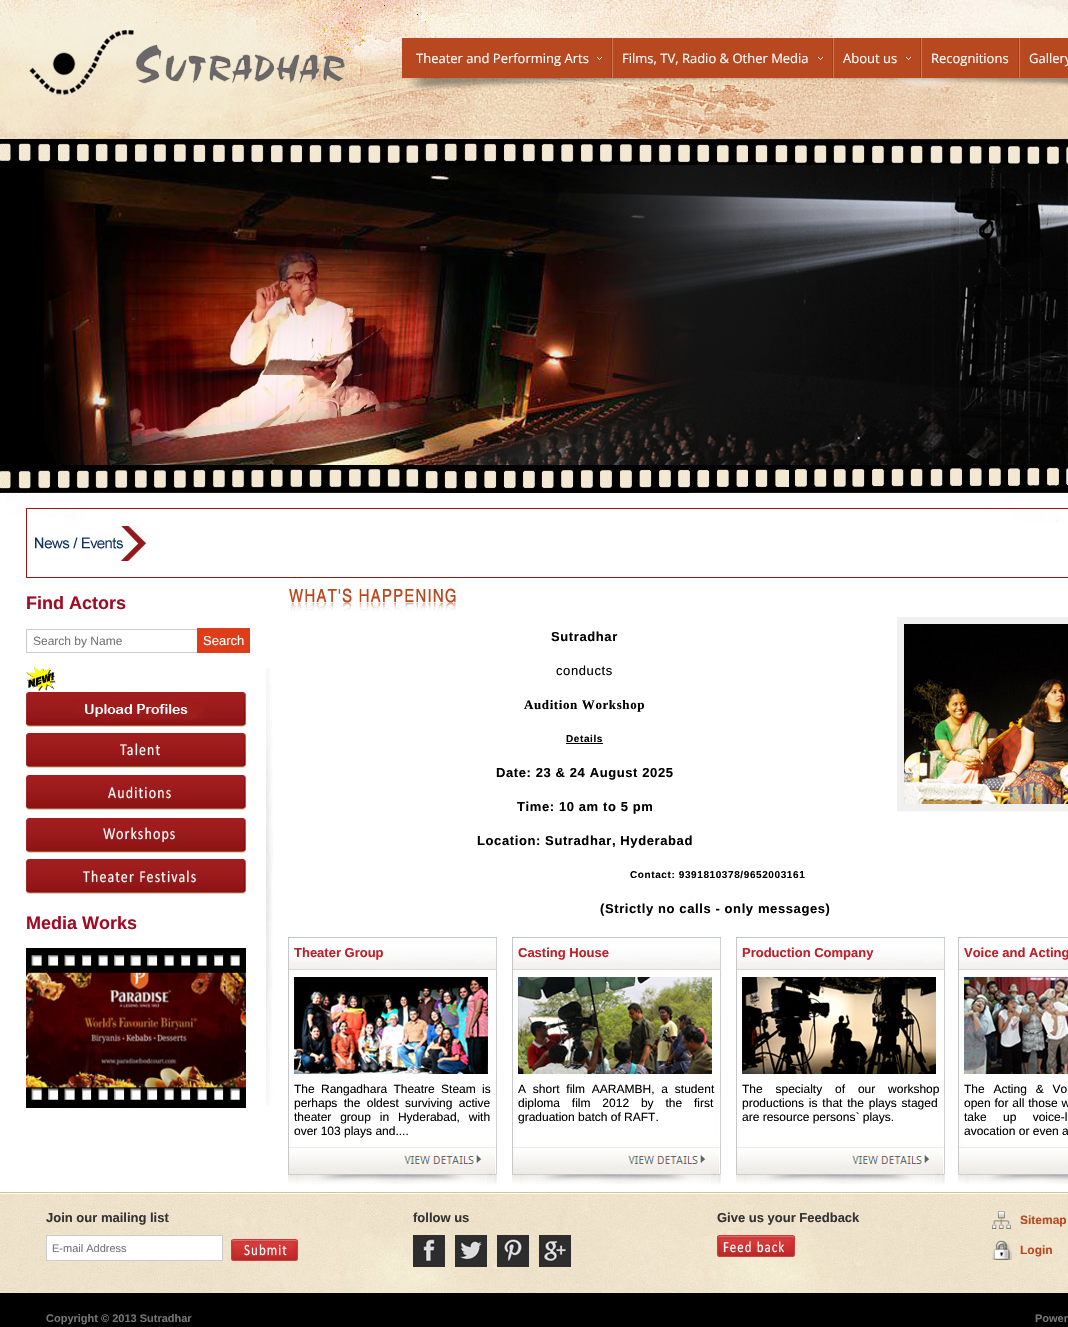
void draw(SkCanvas* canvas) {
  SkPaint paint;
  paint.setAntiAlias(true);
  auto face = [&](const char* family, int weight, float size, bool italic = false) {
    SkFontStyle style(weight, SkFontStyle::kNormal_Width,
      italic ? SkFontStyle::kItalic_Slant : SkFontStyle::kUpright_Slant);
    SkFont result(fontMgr->matchFamilyStyle(family, style), size);
    result.setSubpixel(true);
    return result;
  };
  auto writeSpaced = [&](const char* s, float x, float y, const SkFont& font, const SkPaint& ink, float letter, float word) {
    std::vector<SkGlyphID> glyphs(font.countText(s, strlen(s), SkTextEncoding::kUTF8));
    std::vector<float> xs(glyphs.size());
    font.textToGlyphs(s, strlen(s), SkTextEncoding::kUTF8, glyphs);
    font.getXPos(glyphs, xs, x);
    float extra = 0;
    for (size_t i = 0; i < glyphs.size(); i++) {
      xs[i] += extra;
      extra += letter + word * (glyphs[i] == font.unicharToGlyph(' '));
    }
    canvas->drawTextBlob(SkTextBlob::MakeFromPosHGlyphs(glyphs, xs, y, font), 0, 0, ink);
  };
  auto paste = [&](const char* path, float x, float y, float w, float h) {
    auto image = SkImages::DeferredFromEncodedData(SkData::MakeFromFileName(path));
    canvas->drawImageRect(image, SkRect::MakeXYWH(x, y, w, h), SkSamplingOptions());
  };
  canvas->clear(0xffffffff);
  paste("img/1.png", 0, 0, 1068, 523);
  paste("img/2.png", 29, 30, 316, 65);
  paint.setColor(0xffb84820);
  canvas->drawRect(SkRect::MakeXYWH(402, 38, 209, 40), paint);
  paste("img/3.png", 611, 38, 2, 40);
  paste("img/4.png", 597, 57, 5, 3);
  paste("img/3.png", 832, 38, 2, 40);
  canvas->drawRect(SkRect::MakeXYWH(613, 38, 219, 40), paint);
  paste("img/4.png", 818, 57, 5, 3);
  paste("img/3.png", 920, 38, 2, 40);
  canvas->drawRect(SkRect::MakeXYWH(834, 38, 86, 40), paint);
  paste("img/4.png", 906, 57, 5, 3);
  paste("img/3.png", 1018, 38, 2, 40);
  canvas->drawRect(SkRect::MakeXYWH(922, 38, 96, 40), paint);
  canvas->drawRect(SkRect::MakeXYWH(1020, 38, 48, 40), paint);
  paste("img/5.png", 407, 78, 661, 13);
  paste("img/6.png", 44, 165, 1024, 300);
  paint.setStroke(true);
  paint.setStrokeWidth(1);
  paint.setColor(0xff951718);
  canvas->drawRect(SkRect::MakeXYWH(26.5f, 508.5f, 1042, 69), paint);
  paste("img/7.png", 35, 526, 112, 35);
  paint.setColor(0xffcccccc);
  canvas->drawRect(SkRect::MakeXYWH(26.5f, 629.5f, 174, 23), paint);
  paint.setStroke(false);
  paint.setColor(0xffdf3c19);
  canvas->drawRect(SkRect::MakeXYWH(197, 628, 53, 25), paint);
  paste("img/8.png", 26, 667, 30, 25);
  paste("img/9.png", 26, 692, 220, 35);
  paste("img/10.png", 26, 733, 220, 35);
  paste("img/11.png", 26, 774, 220, 37);
  paste("img/12.png", 26, 817, 220, 36);
  paste("img/13.png", 26, 859, 220, 35);
  paste("img/14.png", 26, 948, 220, 160);
  paste("img/15.png", 266, 668, 7, 438);
  paste("img/16.png", 288, 588, 168, 24);
  paint.setColor(0xff000000);
  canvas->drawRect(SkRect::MakeXYWH(566, 743, 37, 1), paint);
  paste("img/17.png", 897, 617, 171, 195);
  paste("img/18.png", 288, 937, 209, 248);
  paste("img/19.png", 294, 977, 194, 97);
  paste("img/18.png", 512, 937, 209, 248);
  paste("img/20.png", 518, 977, 194, 97);
  paste("img/18.png", 736, 937, 209, 248);
  paste("img/21.png", 742, 977, 194, 97);
  paste("img/22.png", 958, 937, 110, 248);
  paste("img/23.png", 964, 977, 104, 97);
  paste("img/24.png", 0, 1188, 1068, 105);
  paint.setColor(0xffffffff);
  canvas->drawRect(SkRect::MakeXYWH(46.5f, 1235.5f, 176, 25), paint);
  paint.setStroke(true);
  paint.setColor(0xffcccccc);
  canvas->drawRect(SkRect::MakeXYWH(46.5f, 1235.5f, 176, 25), paint);
  paste("img/25.png", 231, 1239, 67, 22);
  paste("img/26.png", 413, 1235, 32, 32);
  paste("img/27.png", 455, 1235, 32, 32);
  paste("img/28.png", 497, 1235, 32, 32);
  paste("img/29.png", 539, 1235, 32, 32);
  paste("img/30.png", 717, 1235, 78, 22);
  paste("img/31.png", 992, 1211, 19, 18);
  paste("img/32.png", 992, 1240, 20, 20);
  paint.setStroke(false);
  paint.setColor(0xff000000);
  canvas->drawRect(SkRect::MakeXYWH(0, 1293, 1068, 34), paint);
  auto f0 = face("Open Sans", 400, 13);
  paint.setColor(0xffffffff);
  {
    const struct { const char* s; float x, y; } items[] = {
      {"Theater and Performing Arts", 416, 63},
      {"Films, TV, Radio & Other Media", 622, 63},
      {"About us", 843, 63},
      {"Recognitions", 931, 63},
      {"Gallery", 1029, 63},
    };
    for (auto [s, x, y] : items) {
      canvas->drawString(s, x, y, f0, paint);
    }
  }
  auto f1 = face("Liberation Sans", 700, 18);
  paint.setColor(0xffa30a24);
  canvas->drawString("Find Actors", 26, 609, f1, paint);
  auto f2 = face("Liberation Sans", 400, 12);
  paint.setColor(0xff757575);
  canvas->drawString("Search by Name", 33, 645, f2, paint);
  auto f3 = face("Liberation Sans", 400, 13);
  paint.setColor(0xffffffff);
  canvas->drawString("Search", 203, 645, f3, paint);
  paint.setColor(0xffa30a24);
  canvas->drawString("Media Works", 26, 929, f1, paint);
  auto f4 = face("Liberation Sans", 700, 13);
  paint.setColor(0xff000000);
  writeSpaced("Sutradhar", 551, 641, f4, paint, 0.6f, 0);
  writeSpaced("conducts", 556, 675, f3, paint, 0.6f, 0);
  auto f5 = face("Liberation Serif", 700, 13);
  writeSpaced("Audition Workshop", 524, 709, f5, paint, 0.6f, 0);
  auto f6 = face("Liberation Sans", 700, 10);
  writeSpaced("Details", 566, 742, f6, paint, 0.6f, 0);
  {
    const struct { const char* s; float x, y; } items[] = {
      {"Date: 23 & 24 August 2025", 496, 777},
      {"Time: 10 am to 5 pm", 517, 811},
      {"Location: Sutradhar, Hyderabad", 477, 845},
    };
    for (auto [s, x, y] : items) {
      writeSpaced(s, x, y, f4, paint, 0.6f, 0);
    }
  }
  writeSpaced("Contact: 9391810378/9652003161", 630, 878, f6, paint, 0.6f, 0);
  writeSpaced("(Strictly no calls - only messages)", 600, 913, f4, paint, 0.6f, 0);
  paint.setColor(0xffbd2029);
  canvas->drawString("Theater Group", 294, 957, f4, paint);
  paint.setColor(0xff000000);
  writeSpaced("The Rangadhara Theatre Steam is", 294, 1093, f2, paint, 0, 3);
  writeSpaced("perhaps the oldest surviving active", 294, 1107, f2, paint, 0, 3);
  writeSpaced("theater group in Hyderabad, with", 294, 1121, f2, paint, 0, 5.5f);
  canvas->drawString("over 103 plays and....", 294, 1135, f2, paint);
  paint.setColor(0xffbd2029);
  canvas->drawString("Casting House", 518, 957, f4, paint);
  paint.setColor(0xff000000);
  writeSpaced("A short film AARAMBH, a student", 518, 1093, f2, paint, 0, 3.5f);
  writeSpaced("diploma film 2012 by the first", 518, 1107, f2, paint, 0, 8.5f);
  canvas->drawString("graduation batch of RAFT.", 518, 1121, f2, paint);
  paint.setColor(0xffbd2029);
  canvas->drawString("Production Company", 742, 957, f4, paint);
  paint.setColor(0xff000000);
  writeSpaced("The specialty of our workshop", 742, 1093, f2, paint, 0, 9.5f);
  writeSpaced("productions is that the plays staged", 742, 1107, f2, paint, 0, 1.5f);
  canvas->drawString("are resource persons` plays.", 742, 1121, f2, paint);
  paint.setColor(0xffbd2029);
  canvas->drawString("Voice and Acting", 964, 957, f4, paint);
  paint.setColor(0xff000000);
  writeSpaced("The Acting & Vo", 964, 1093, f2, paint, 0, 5.5f);
  writeSpaced("open for all those w", 964, 1107, f2, paint, 0, 0.5f);
  writeSpaced("take up voice-l", 964, 1121, f2, paint, 0, 13);
  canvas->drawString("avocation or even a", 964, 1135, f2, paint);
  paint.setColor(0xff333333);
  canvas->drawString("Join our mailing list", 46, 1222, f4, paint);
  auto f7 = face("Liberation Sans", 400, 11);
  paint.setColor(0xff757575);
  canvas->drawString("E-mail Address", 52, 1252, f7, paint);
  paint.setColor(0xff333333);
  canvas->drawString("follow us", 413, 1222, f4, paint);
  canvas->drawString("Give us your Feedback", 717, 1222, f4, paint);
  auto f8 = face("Liberation Sans", 700, 12);
  paint.setColor(0xffb84820);
  canvas->drawString("Sitemap", 1020, 1224, f8, paint);
  canvas->drawString("Login", 1020, 1254, f8, paint);
  auto f9 = face("Liberation Sans", 700, 11);
  paint.setColor(0xff757575);
  canvas->drawString("Copyright © 2013 Sutradhar", 46, 1322, f9, paint);
  canvas->drawString("Power", 1035, 1322, f9, paint);
}
